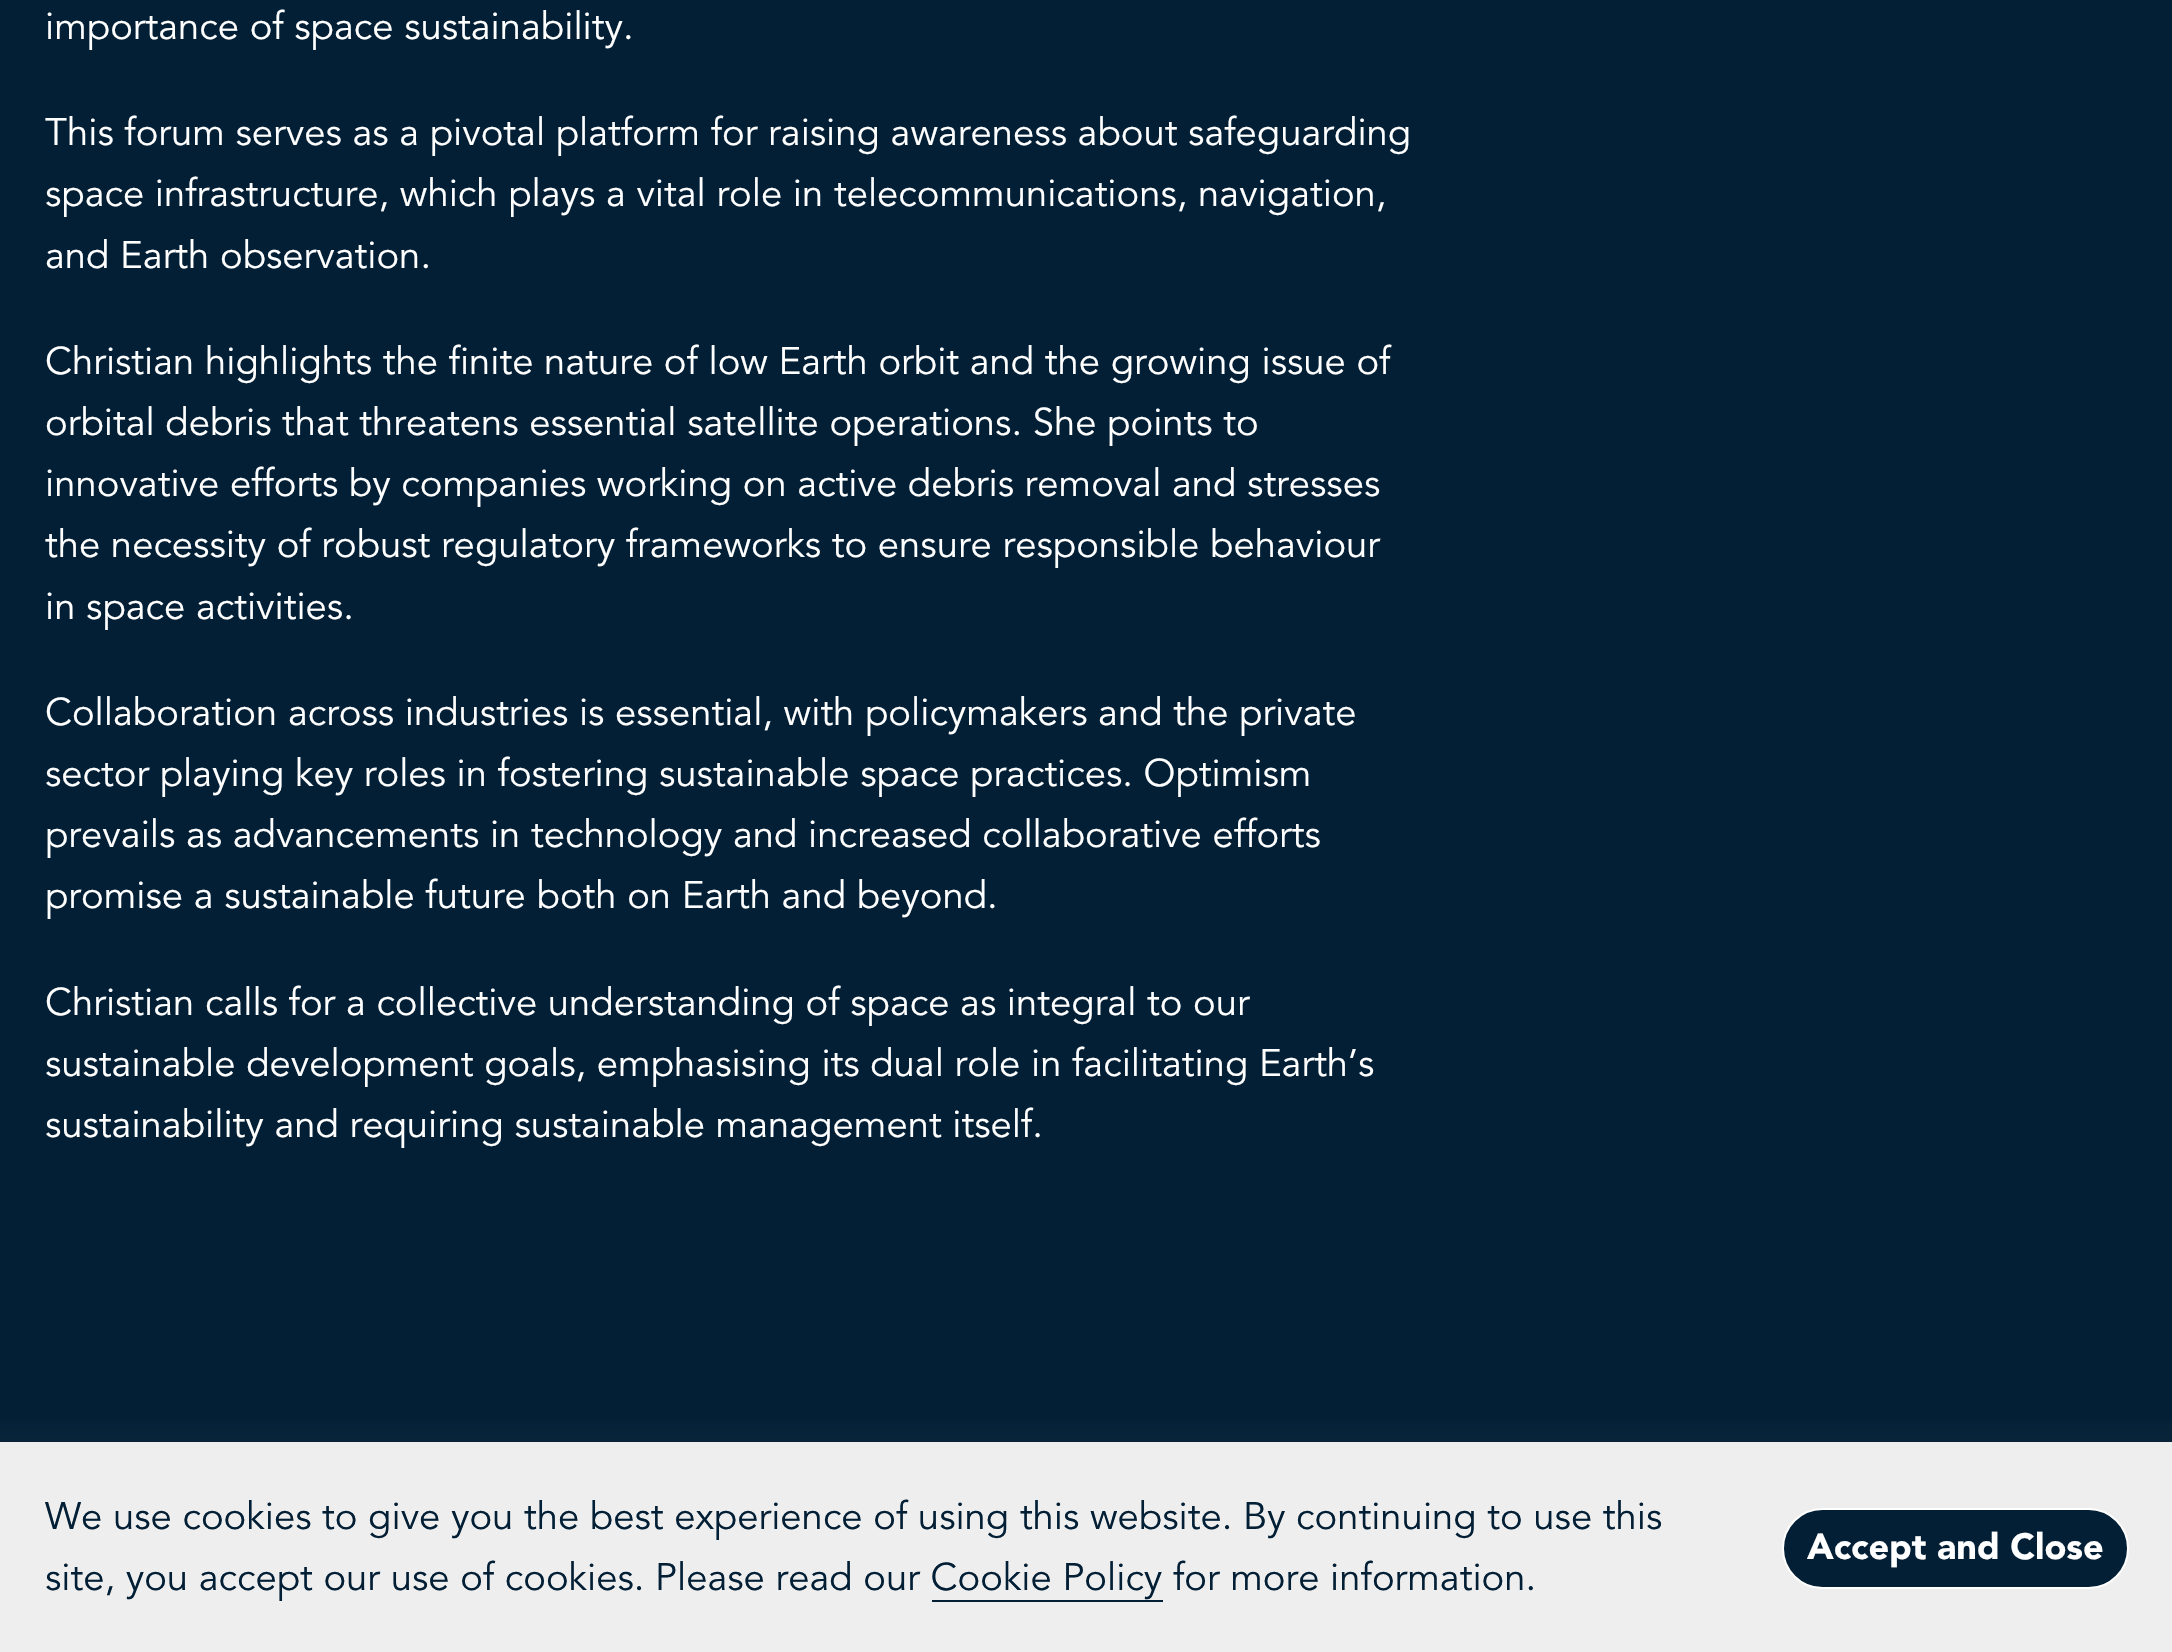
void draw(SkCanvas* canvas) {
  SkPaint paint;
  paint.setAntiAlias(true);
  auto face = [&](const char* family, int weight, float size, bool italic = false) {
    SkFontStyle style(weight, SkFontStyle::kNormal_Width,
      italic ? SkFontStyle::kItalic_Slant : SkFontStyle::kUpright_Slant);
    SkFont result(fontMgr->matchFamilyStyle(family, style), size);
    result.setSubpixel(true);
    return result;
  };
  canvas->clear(0xff031f35);
  {
    const SkColor colors[] = {0xff1c3549, 0xff031f35};
    const float stops[] = {0, 1};
    const SkPoint ends[] = {{1087, 1562}, {1087, 1404}};
    paint.setShader(SkGradientShader::MakeLinear(ends, colors, stops, 2, SkTileMode::kClamp));
    paint.setAlpha(255);
  }
  canvas->drawRect(SkRect::MakeXYWH(0, 1420, 2172, 22), paint);
  paint.setShader(nullptr);
  paint.setColor(0xffeeeeee);
  canvas->drawRect(SkRect::MakeXYWH(0, 1442, 2172, 210), paint);
  paint.setColor(0xff031f35);
  canvas->drawRect(SkRect::MakeXYWH(932, 1600, 231, 2), paint);
  canvas->drawRoundRect(SkRect::MakeXYWH(1783, 1509, 345, 79), 39.5f, 39.5f, paint);
  paint.setStroke(true);
  paint.setStrokeWidth(2);
  paint.setColor(0xffffffff);
  canvas->drawRoundRect(SkRect::MakeXYWH(1783, 1509, 345, 79), 39.5f, 39.5f, paint);
  auto f0 = face("Avenir", 400, 38.25f);
  paint.setStroke(false);
  {
    const struct { const char* s; float x, y; } items[] = {
      {"importance of space sustainability.", 45, 39},
      {"This forum serves as a pivotal platform for raising awareness about safeguarding", 45, 145},
      {"space infrastructure, which plays a vital role in telecommunications, navigation,", 45, 206},
      {"and Earth observation.", 45, 268},
      {"Christian highlights the finite nature of low Earth orbit and the growing issue of", 45, 374},
      {"orbital debris that threatens essential satellite operations. She points to", 45, 435},
      {"innovative efforts by companies working on active debris removal and stresses", 45, 496},
      {"the necessity of robust regulatory frameworks to ensure responsible behaviour", 45, 557},
      {"in space activities.", 45, 619},
      {"Collaboration across industries is essential, with policymakers and the private", 45, 725},
      {"sector playing key roles in fostering sustainable space practices. Optimism", 45, 786},
      {"prevails as advancements in technology and increased collaborative efforts", 45, 847},
      {"promise a sustainable future both on Earth and beyond.", 45, 908},
      {"Christian calls for a collective understanding of space as integral to our", 45, 1015},
      {"sustainable development goals, emphasising its dual role in facilitating Earth’s", 45, 1076},
      {"sustainability and requiring sustainable management itself.", 45, 1137},
    };
    for (auto [s, x, y] : items) {
      canvas->drawString(s, x, y, f0, paint);
    }
  }
  paint.setColor(0xff031f35);
  canvas->drawString("We use cookies to give you the best experience of using this website. By continuing to use this", 45, 1529, f0, paint);
  canvas->drawString("site, you accept our use of cookies. Please read our Cookie Policy for more information.", 45, 1590, f0, paint);
  auto f1 = face("Avenir", 900, 36);
  paint.setColor(0xffffffff);
  canvas->drawString("Accept and Close", 1807, 1559, f1, paint);
}
